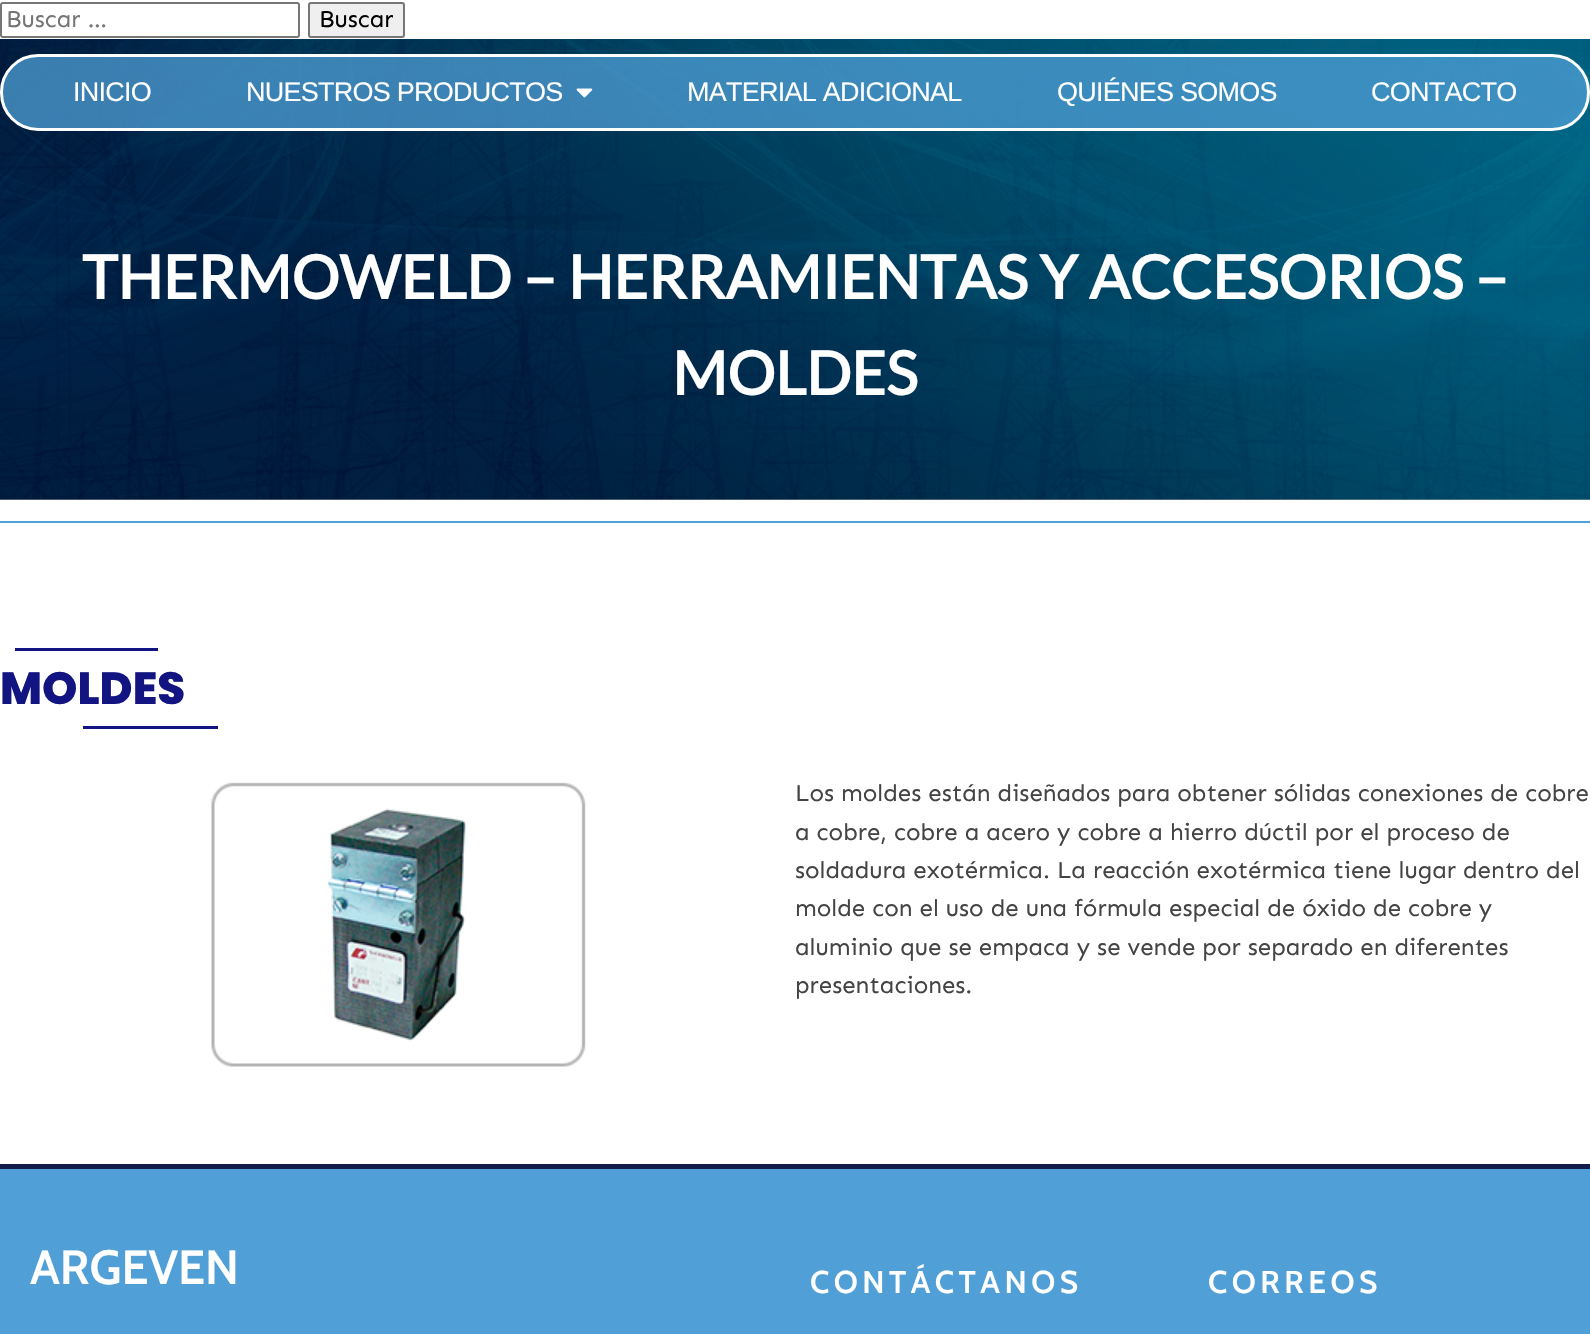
void draw(SkCanvas* canvas) {
  SkPaint paint;
  paint.setAntiAlias(true);
  auto face = [&](const char* family, int weight, float size, bool italic = false) {
    SkFontStyle style(weight, SkFontStyle::kNormal_Width,
      italic ? SkFontStyle::kItalic_Slant : SkFontStyle::kUpright_Slant);
    SkFont result(fontMgr->matchFamilyStyle(family, style), size);
    result.setSubpixel(true);
    return result;
  };
  auto writeSpaced = [&](const char* s, float x, float y, const SkFont& font, const SkPaint& ink, float letter, float word) {
    std::vector<SkGlyphID> glyphs(font.countText(s, strlen(s), SkTextEncoding::kUTF8));
    std::vector<float> xs(glyphs.size());
    font.textToGlyphs(s, strlen(s), SkTextEncoding::kUTF8, glyphs);
    font.getXPos(glyphs, xs, x);
    float extra = 0;
    for (size_t i = 0; i < glyphs.size(); i++) {
      xs[i] += extra;
      extra += letter + word * (glyphs[i] == font.unicharToGlyph(' '));
    }
    canvas->drawTextBlob(SkTextBlob::MakeFromPosHGlyphs(glyphs, xs, y, font), 0, 0, ink);
  };
  auto paste = [&](const char* path, float x, float y, float w, float h) {
    auto image = SkImages::DeferredFromEncodedData(SkData::MakeFromFileName(path));
    canvas->drawImageRect(image, SkRect::MakeXYWH(x, y, w, h), SkSamplingOptions());
  };
  canvas->clear(0xffffffff);
  paint.setColor(0xff999999);
  canvas->drawRect(SkRect::MakeXYWH(0, 499, 1590, 1), paint);
  paint.setStroke(true);
  paint.setStrokeWidth(2);
  paint.setColor(0xff767676);
  canvas->drawRoundRect(SkRect::MakeXYWH(1, 3, 298, 34), 2, 2, paint);
  paint.setStroke(false);
  paint.setColor(0xffefefef);
  canvas->drawRoundRect(SkRect::MakeXYWH(309, 3, 95, 34), 2, 2, paint);
  paint.setStroke(true);
  paint.setColor(0xff767676);
  canvas->drawRoundRect(SkRect::MakeXYWH(309, 3, 95, 34), 2, 2, paint);
  paste("img/1.png", 0, 39, 1590, 461);
  paint.setStroke(false);
  paint.setColor(0xbd509fd7);
  canvas->drawRoundRect(SkRect::MakeXYWH(1.5f, 55.5f, 1587, 74), 36.5f, 36.5f, paint);
  paint.setStroke(true);
  paint.setStrokeWidth(3);
  paint.setColor(0xffffffff);
  canvas->drawRoundRect(SkRect::MakeXYWH(1.5f, 55.5f, 1587, 74), 36.5f, 36.5f, paint);
  paste("img/2.png", 576, 88, 17, 10);
  paint.setStroke(false);
  {
    const struct { float x, y, w, h; SkColor color; } items[] = {
      {0, 521, 1590, 2, 0xff509fd7},
      {15, 648, 143, 3, 0xff121581},
      {83, 726, 135, 3, 0xff121581},
    };
    for (auto [x, y, w, h, color] : items) {
      paint.setColor(color);
      canvas->drawRect(SkRect::MakeXYWH(x, y, w, h), paint);
    }
  }
  paste("img/3.png", 211, 782, 375, 285);
  paint.setColor(0xff509fd7);
  canvas->drawRect(SkRect::MakeXYWH(0, 1169, 1590, 165), paint);
  paint.setColor(0xff131c4b);
  canvas->drawRect(SkRect::MakeXYWH(0, 1164, 1590, 5), paint);
  auto f0 = face("Sen", 400, 24);
  paint.setColor(0xff757575);
  canvas->drawString("Buscar …", 6, 27, f0, paint);
  paint.setColor(0xff000000);
  canvas->drawString("Buscar", 319, 27, f0, paint);
  auto f1 = face("Liberation Sans", 400, 27);
  paint.setColor(0xffffffff);
  {
    const struct { const char* s; float x, y; } items[] = {
      {"INICIO", 73, 101},
      {"NUESTROS PRODUCTOS", 246, 101},
      {"MATERIAL ADICIONAL", 687, 101},
      {"QUIÉNES SOMOS", 1057, 101},
      {"CONTACTO", 1371, 101},
    };
    for (auto [s, x, y] : items) {
      writeSpaced(s, x, y, f1, paint, -0.75f, 0);
    }
  }
  auto f2 = face("Lato", 700, 60);
  canvas->drawString("THERMOWELD – HERRAMIENTAS Y ACCESORIOS –", 82, 299, f2, paint);
  canvas->drawString("MOLDES", 672, 395, f2, paint);
  auto f3 = face("Poppins", 800, 45);
  paint.setColor(0xff121581);
  canvas->drawString("MOLDES", 0, 704, f3, paint);
  paint.setColor(0xff444444);
  {
    const struct { const char* s; float x, y; } items[] = {
      {"Los moldes están diseñados para obtener sólidas conexiones de cobre", 795, 801},
      {"a cobre, cobre a acero y cobre a hierro dúctil por el proceso de", 795, 840},
      {"soldadura exotérmica. La reacción exotérmica tiene lugar dentro del", 795, 878},
      {"molde con el uso de una fórmula especial de óxido de cobre y", 795, 916},
      {"aluminio que se empaca y se vende por separado en diferentes", 795, 955},
      {"presentaciones.", 795, 993},
    };
    for (auto [s, x, y] : items) {
      canvas->drawString(s, x, y, f0, paint);
    }
  }
  auto f4 = face("Cabin", 600, 48);
  paint.setColor(0xffffffff);
  canvas->drawString("ARGEVEN", 30, 1284, f4, paint);
  auto f5 = face("Cabin", 600, 31.5f);
  writeSpaced("CONTÁCTANOS", 810, 1293, f5, paint, 4.5f, 0);
  writeSpaced("CORREOS", 1208, 1293, f5, paint, 4.5f, 0);
}
